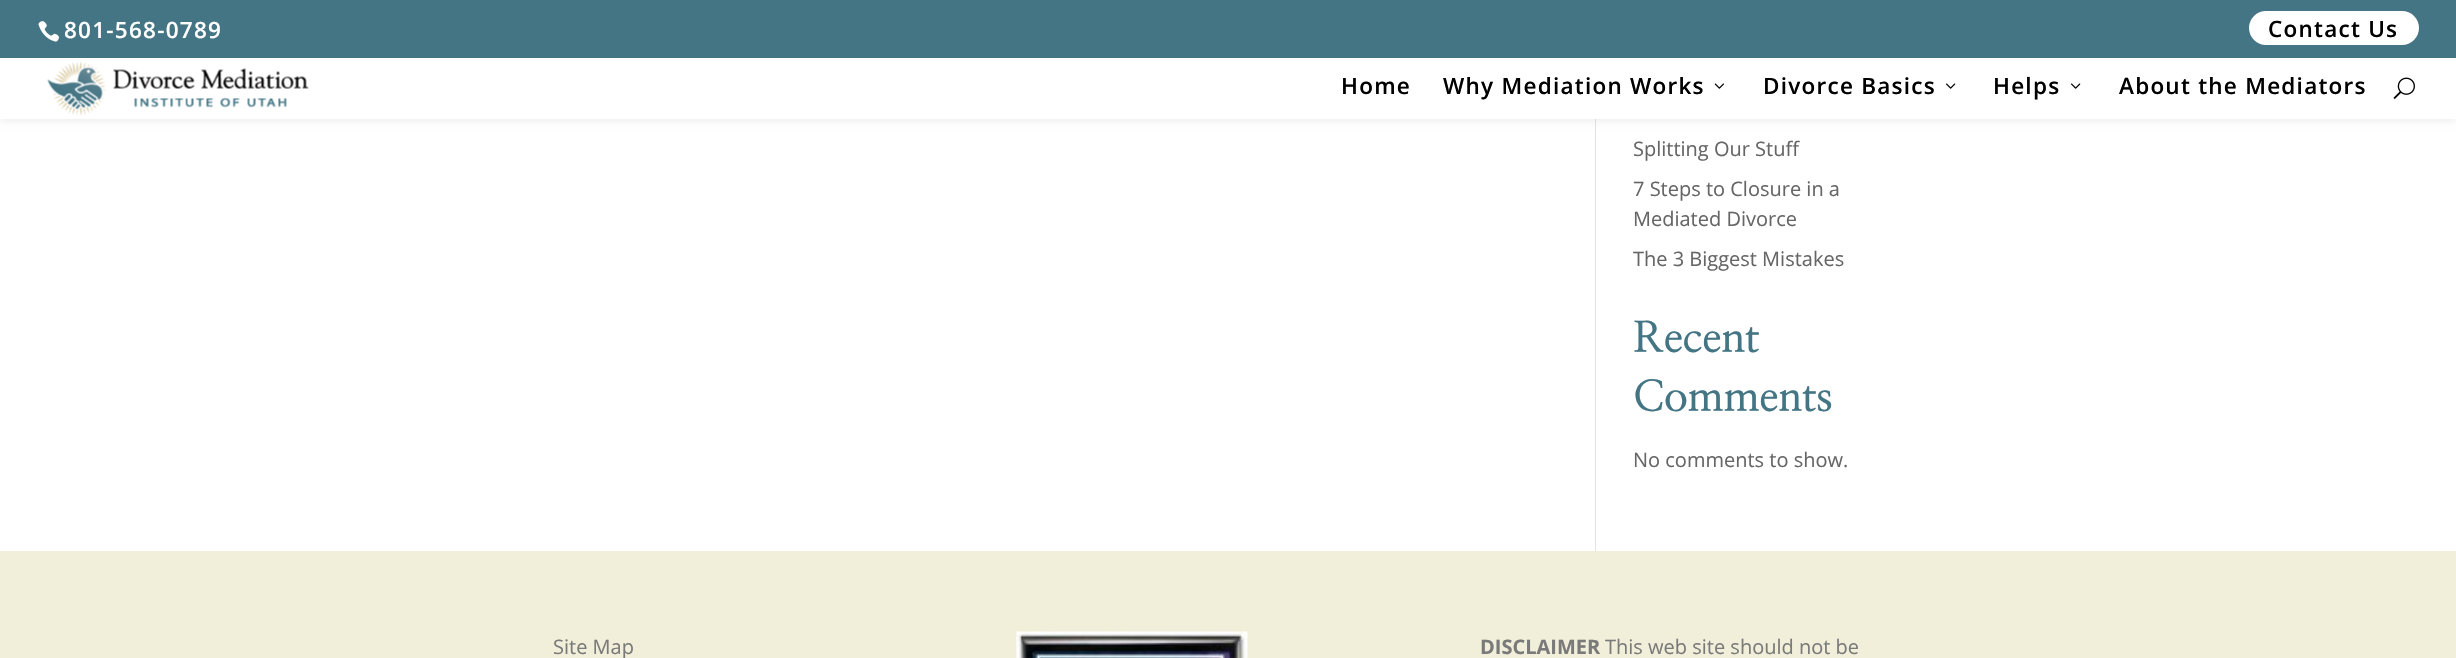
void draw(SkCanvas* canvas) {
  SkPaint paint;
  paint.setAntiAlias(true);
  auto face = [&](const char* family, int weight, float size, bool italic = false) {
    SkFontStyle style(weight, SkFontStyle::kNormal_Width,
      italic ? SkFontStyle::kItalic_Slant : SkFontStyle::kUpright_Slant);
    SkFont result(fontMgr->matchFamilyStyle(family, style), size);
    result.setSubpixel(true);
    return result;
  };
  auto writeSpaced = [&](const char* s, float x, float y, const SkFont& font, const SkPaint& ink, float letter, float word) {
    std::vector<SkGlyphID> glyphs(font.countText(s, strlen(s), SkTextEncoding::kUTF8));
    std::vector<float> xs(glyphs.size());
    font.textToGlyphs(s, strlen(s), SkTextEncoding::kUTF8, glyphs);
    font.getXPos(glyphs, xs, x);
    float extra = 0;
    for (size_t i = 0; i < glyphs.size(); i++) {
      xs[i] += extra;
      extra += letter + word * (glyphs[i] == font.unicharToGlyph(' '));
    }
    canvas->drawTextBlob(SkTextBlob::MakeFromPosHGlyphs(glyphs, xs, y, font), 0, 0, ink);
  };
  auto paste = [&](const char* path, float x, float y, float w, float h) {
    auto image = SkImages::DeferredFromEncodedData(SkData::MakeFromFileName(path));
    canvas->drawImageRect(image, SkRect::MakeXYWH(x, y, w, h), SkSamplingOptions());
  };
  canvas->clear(0xffffffff);
  paint.setColor(0xffe2e2e2);
  canvas->drawRect(SkRect::MakeXYWH(1595, 119, 1, 432), paint);
  paint.setColor(0x1a000000);
  paint.setMaskFilter(SkMaskFilter::MakeBlur(kNormal_SkBlurStyle, 4.5f));
  canvas->drawRect(SkRect::MakeXYWH(0, 58, 2456, 61), paint);
  paint.setMaskFilter(nullptr);
  paint.setColor(0xff437584);
  canvas->drawRect(SkRect::MakeXYWH(0, 0, 2456, 58), paint);
  paste("img/1.png", 38, 21, 21, 21);
  paint.setColor(0xffffffff);
  canvas->drawRoundRect(SkRect::MakeXYWH(2249, 11, 170, 34), 17, 17, paint);
  canvas->drawRect(SkRect::MakeXYWH(0, 58, 2456, 61), paint);
  paste("img/2.png", 47, 61, 262, 54);
  paste("img/3.png", 1714, 83, 10, 6);
  paste("img/4.png", 1946, 83, 10, 6);
  paste("img/4.png", 2071, 83, 10, 6);
  paste("img/5.png", 2393, 77, 22, 22);
  paint.setColor(0xfff1efd9);
  canvas->drawRect(SkRect::MakeXYWH(0, 551, 2456, 107), paint);
  paste("img/6.png", 1016, 631, 232, 27);
  auto f0 = face("Open Sans", 600, 22.5f);
  paint.setColor(0xffffffff);
  writeSpaced("801-568-0789", 64, 38, f0, paint, 1.25f, 0);
  paint.setColor(0xff000000);
  {
    const struct { const char* s; float x, y; } items[] = {
      {"Contact Us", 2268, 37},
      {"Home", 1341, 94},
      {"Why Mediation Works", 1443, 94},
      {"Divorce Basics", 1763, 94},
      {"Helps", 1993, 94},
      {"About the Mediators", 2119, 94},
    };
    for (auto [s, x, y] : items) {
      writeSpaced(s, x, y, f0, paint, 1.25f, 0);
    }
  }
  auto f1 = face("Open Sans", 400, 20);
  paint.setColor(0xff666666);
  {
    const struct { const char* s; float x, y; } items[] = {
      {"Splitting Our Stuff", 1633, 156},
      {"7 Steps to Closure in a", 1633, 196},
      {"Mediated Divorce", 1633, 226},
      {"The 3 Biggest Mistakes", 1633, 266},
    };
    for (auto [s, x, y] : items) {
      canvas->drawString(s, x, y, f1, paint);
    }
  }
  auto f2 = face("NanumMyeongjo", 700, 42.5f);
  paint.setColor(0xff437584);
  canvas->drawString("Recent", 1633, 352, f2, paint);
  canvas->drawString("Comments", 1633, 411, f2, paint);
  paint.setColor(0xff666666);
  canvas->drawString("No comments to show.", 1633, 467, f1, paint);
  paint.setColor(0xff7a7a7a);
  canvas->drawString("Site Map", 553, 654, f1, paint);
  auto f3 = face("Open Sans", 700, 20);
  canvas->drawString("DISCLAIMER", 1480, 654, f3, paint);
  canvas->drawString("This web site should not be", 1605, 654, f1, paint);
}
